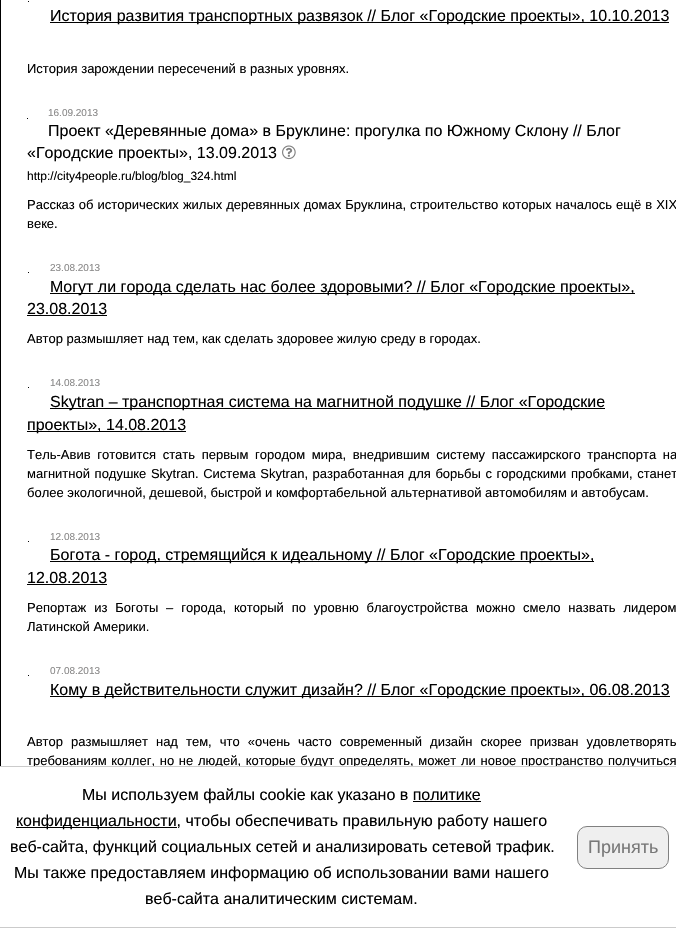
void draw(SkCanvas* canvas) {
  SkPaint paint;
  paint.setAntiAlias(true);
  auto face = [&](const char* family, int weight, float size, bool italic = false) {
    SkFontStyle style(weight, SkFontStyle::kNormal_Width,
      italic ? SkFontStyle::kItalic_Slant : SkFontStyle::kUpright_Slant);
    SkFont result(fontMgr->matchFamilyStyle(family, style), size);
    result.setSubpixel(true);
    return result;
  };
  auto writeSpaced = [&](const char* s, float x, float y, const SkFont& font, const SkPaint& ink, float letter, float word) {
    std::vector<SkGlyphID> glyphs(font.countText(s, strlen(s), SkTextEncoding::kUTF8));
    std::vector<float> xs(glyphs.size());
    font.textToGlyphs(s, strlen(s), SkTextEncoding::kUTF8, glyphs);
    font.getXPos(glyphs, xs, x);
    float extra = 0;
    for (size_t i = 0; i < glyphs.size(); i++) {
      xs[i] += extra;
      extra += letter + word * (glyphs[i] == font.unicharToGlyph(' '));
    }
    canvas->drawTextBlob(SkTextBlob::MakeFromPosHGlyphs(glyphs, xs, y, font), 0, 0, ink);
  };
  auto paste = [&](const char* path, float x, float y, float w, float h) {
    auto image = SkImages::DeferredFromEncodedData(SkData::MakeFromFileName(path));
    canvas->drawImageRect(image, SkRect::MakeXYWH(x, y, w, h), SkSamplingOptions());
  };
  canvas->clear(0xffffffff);
  {
    const struct { float x, y, w, h; SkColor color; } items[] = {
      {0, 0, 1, 766, 0xff000000},
      {28, 1, 1, 1, 0xff080808},
      {50, 22, 619, 1, 0xff000000},
    };
    for (auto [x, y, w, h, color] : items) {
      paint.setColor(color);
      canvas->drawRect(SkRect::MakeXYWH(x, y, w, h), paint);
    }
  }
  paste("img/1.png", 282, 145, 14, 15);
  {
    const struct { float x, y, w, h; SkColor color; } items[] = {
      {27, 118, 1, 1, 0xff080808},
      {50, 293, 585, 1, 0xff000000},
      {27, 315, 80, 1, 0xff000000},
      {28, 272, 1, 1, 0xff080808},
      {50, 408, 555, 1, 0xff000000},
      {27, 431, 159, 1, 0xff000000},
      {28, 387, 1, 1, 0xff080808},
      {50, 561, 544, 1, 0xff000000},
      {27, 584, 80, 1, 0xff000000},
      {28, 541, 1, 1, 0xff080808},
      {50, 696, 620, 1, 0xff000000},
      {28, 675, 1, 1, 0xff080808},
    };
    for (auto [x, y, w, h, color] : items) {
      paint.setColor(color);
      canvas->drawRect(SkRect::MakeXYWH(x, y, w, h), paint);
    }
  }
  auto f0 = face("Liberation Sans", 400, 16);
  paint.setColor(0xff000000);
  canvas->drawString("История развития транспортных развязок // Блог «Городские проекты», 10.10.2013", 50, 21, f0, paint);
  auto f1 = face("Liberation Sans", 400, 13);
  canvas->drawString("История зарождении пересечений в разных уровнях.", 27, 73, f1, paint);
  auto f2 = face("Liberation Sans", 400, 10);
  paint.setColor(0xff8a8989);
  canvas->drawString("16.09.2013", 48, 116, f2, paint);
  paint.setColor(0xff000000);
  canvas->drawString("Проект «Деревянные дома» в Бруклине: прогулка по Южному Склону // Блог", 48, 136, f0, paint);
  canvas->drawString("«Городские проекты», 13.09.2013", 27, 158, f0, paint);
  auto f3 = face("Liberation Sans", 400, 12);
  canvas->drawString("http://city4people.ru/blog/blog_324.html", 27, 180, f3, paint);
  writeSpaced("Рассказ об исторических жилых деревянных домах Бруклина, строительство которых началось ещё в XIX", 27, 209, f1, paint, 0, 0.4f);
  canvas->drawString("веке.", 27, 228, f1, paint);
  paint.setColor(0xff8a8989);
  canvas->drawString("23.08.2013", 50, 271, f2, paint);
  paint.setColor(0xff000000);
  canvas->drawString("Могут ли города сделать нас более здоровыми? // Блог «Городские проекты»,", 50, 292, f0, paint);
  canvas->drawString("23.08.2013", 27, 314, f0, paint);
  canvas->drawString("Автор размышляет над тем, как сделать здоровее жилую среду в городах.", 27, 343, f1, paint);
  paint.setColor(0xff8a8989);
  canvas->drawString("14.08.2013", 50, 386, f2, paint);
  paint.setColor(0xff000000);
  canvas->drawString("Skytran – транспортная система на магнитной подушке // Блог «Городские", 50, 407, f0, paint);
  canvas->drawString("проекты», 14.08.2013", 27, 430, f0, paint);
  writeSpaced("Тель-Авив готовится стать первым городом мира, внедрившим систему пассажирского транспорта на", 27, 459, f1, paint, 0, 3);
  writeSpaced("магнитной подушке Skytran. Система Skytran, разработанная для борьбы с городскими пробками, станет", 27, 478, f1, paint, 0, 1);
  canvas->drawString("более экологичной, дешевой, быстрой и комфортабельной альтернативой автомобилям и автобусам.", 27, 497, f1, paint);
  paint.setColor(0xff8a8989);
  canvas->drawString("12.08.2013", 50, 540, f2, paint);
  paint.setColor(0xff000000);
  canvas->drawString("Богота - город, стремящийся к идеальному // Блог «Городские проекты»,", 50, 560, f0, paint);
  canvas->drawString("12.08.2013", 27, 583, f0, paint);
  writeSpaced("Репортаж из Боготы – города, который по уровню благоустройства можно смело назвать лидером", 27, 612, f1, paint, 0, 4.25f);
  canvas->drawString("Латинской Америки.", 27, 631, f1, paint);
  paint.setColor(0xff8a8989);
  canvas->drawString("07.08.2013", 50, 674, f2, paint);
  paint.setColor(0xff000000);
  canvas->drawString("Кому в действительности служит дизайн? // Блог «Городские проекты», 06.08.2013", 50, 695, f0, paint);
  writeSpaced("Автор размышляет над тем, что «очень часто современный дизайн скорее призван удовлетворять", 27, 746, f1, paint, 0, 4.4f);
  writeSpaced("требованиям коллег, но не людей, которые будут определять, может ли новое пространство получиться", 27, 765, f1, paint, 0, 1.1f);
  paint.setColor(0xffffffff);
  canvas->drawRect(SkRect::MakeXYWH(33, 767, 600, 1), paint);
  paint.setStroke(true);
  paint.setStrokeWidth(1);
  paint.setColor(0xffcbcbcb);
  canvas->drawRect(SkRect::MakeXYWH(-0.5f, 766.5f, 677, 161), paint);
  paint.setStroke(false);
  paint.setColor(0xff000000);
  canvas->drawString("Мы используем файлы cookie как указано в политике", 82, 800, f0, paint);
  canvas->drawRect(SkRect::MakeXYWH(413, 801, 68, 1), paint);
  canvas->drawRect(SkRect::MakeXYWH(16, 827, 161, 1), paint);
  {
    const struct { const char* s; float x, y; } items[] = {
      {"конфиденциальности, чтобы обеспечивать правильную работу нашего", 16, 826},
      {"веб-сайта, функций социальных сетей и анализировать сетевой трафик.", 10, 852},
      {"Мы также предоставляем информацию об использовании вами нашего", 14, 878},
      {"веб-сайта аналитическим системам.", 145, 904},
    };
    for (auto [s, x, y] : items) {
      canvas->drawString(s, x, y, f0, paint);
    }
  }
  paint.setColor(0xffefefef);
  canvas->drawRoundRect(SkRect::MakeXYWH(577.5f, 826.5f, 91, 42), 9.5f, 9.5f, paint);
  paint.setStroke(true);
  paint.setColor(0xff808080);
  canvas->drawRoundRect(SkRect::MakeXYWH(577.5f, 826.5f, 91, 42), 9.5f, 9.5f, paint);
  auto f4 = face("Liberation Sans", 400, 18);
  paint.setStroke(false);
  paint.setColor(0xff787878);
  canvas->drawString("Принять", 588, 853, f4, paint);
}
